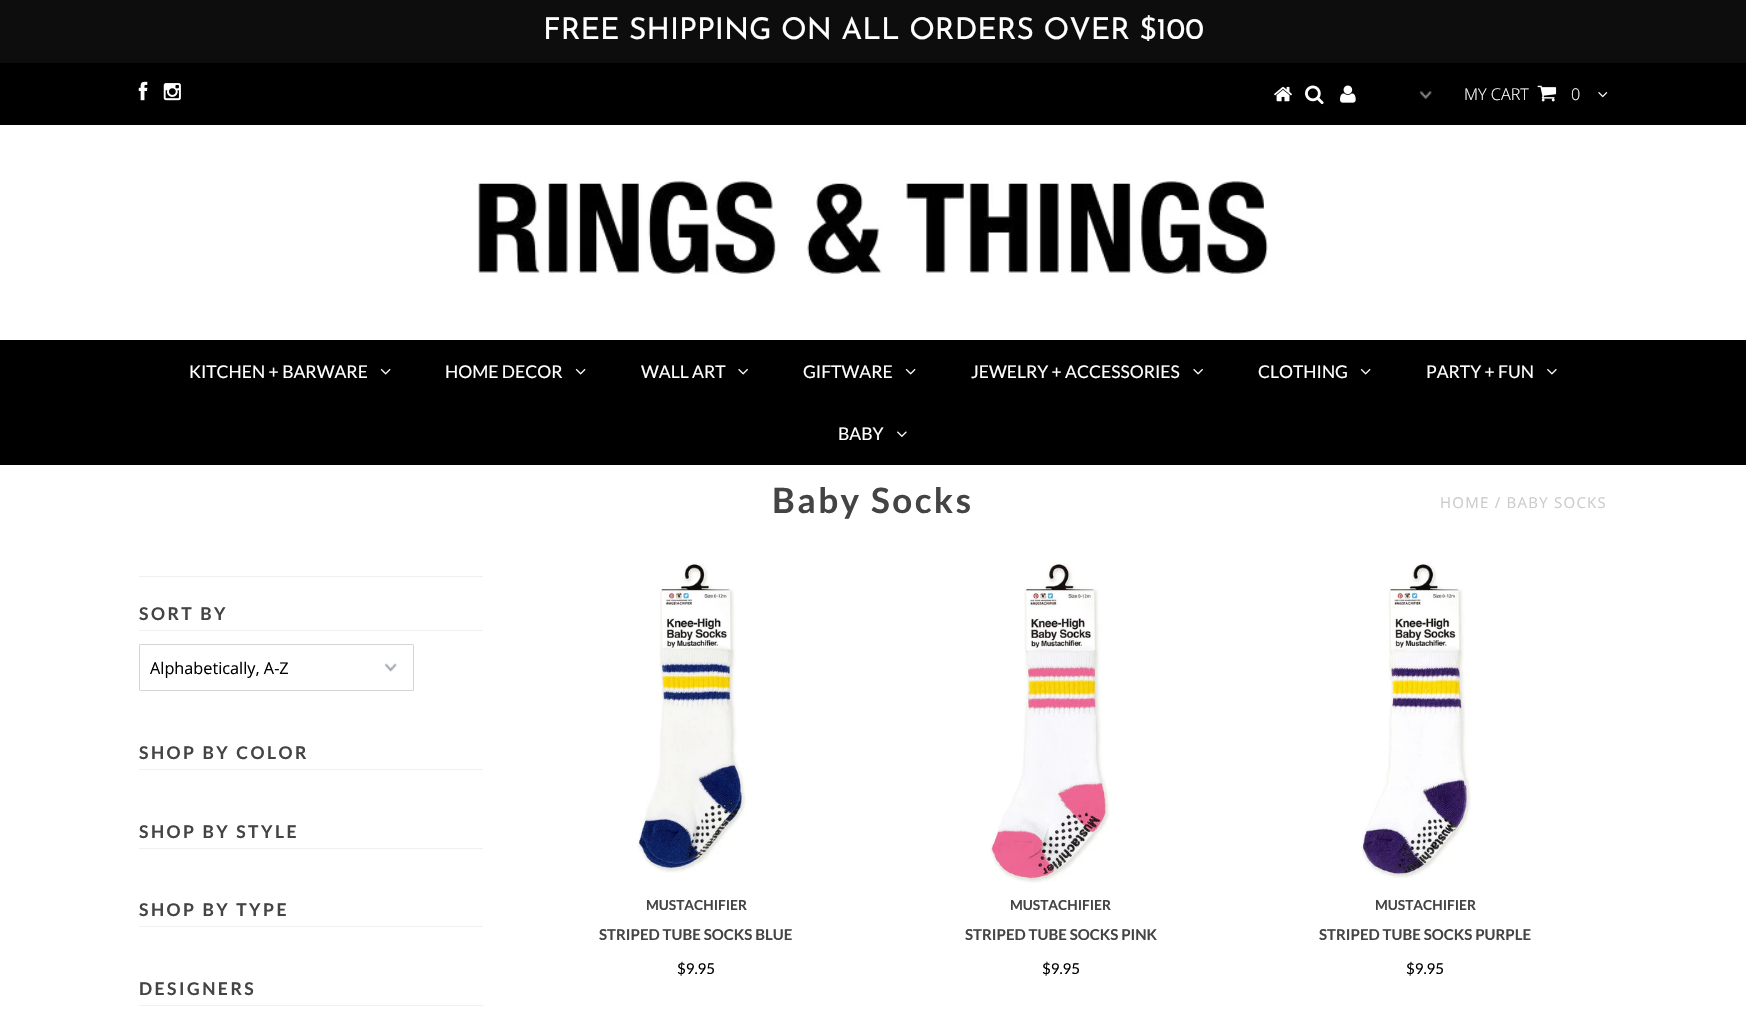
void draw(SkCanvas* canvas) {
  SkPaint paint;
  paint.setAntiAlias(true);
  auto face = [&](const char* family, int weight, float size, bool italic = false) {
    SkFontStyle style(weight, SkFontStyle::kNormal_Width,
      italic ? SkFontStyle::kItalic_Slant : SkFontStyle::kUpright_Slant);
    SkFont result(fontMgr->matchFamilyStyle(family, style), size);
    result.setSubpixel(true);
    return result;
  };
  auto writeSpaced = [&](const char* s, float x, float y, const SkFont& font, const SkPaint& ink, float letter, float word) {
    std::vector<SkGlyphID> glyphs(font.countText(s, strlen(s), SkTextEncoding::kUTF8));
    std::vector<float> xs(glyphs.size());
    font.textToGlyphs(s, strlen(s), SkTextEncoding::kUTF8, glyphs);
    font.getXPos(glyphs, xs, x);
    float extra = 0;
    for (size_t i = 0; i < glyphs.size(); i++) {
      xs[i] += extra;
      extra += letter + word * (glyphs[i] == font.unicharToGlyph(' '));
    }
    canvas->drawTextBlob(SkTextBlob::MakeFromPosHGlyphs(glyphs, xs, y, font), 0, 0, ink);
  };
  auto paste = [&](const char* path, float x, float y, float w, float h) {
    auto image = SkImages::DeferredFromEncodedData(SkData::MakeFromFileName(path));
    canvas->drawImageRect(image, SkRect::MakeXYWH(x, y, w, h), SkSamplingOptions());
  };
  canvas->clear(0xffffffff);
  paint.setColor(0xff0d0d0d);
  canvas->drawRect(SkRect::MakeXYWH(0, 0, 1746, 63), paint);
  paint.setColor(0xff000000);
  canvas->drawRect(SkRect::MakeXYWH(0, 63, 1746, 62), paint);
  paste("img/1.png", 138, 81, 10, 20);
  paste("img/2.png", 163, 83, 18, 18);
  paste("img/3.png", 1274, 86, 18, 16);
  paste("img/4.png", 1305, 85, 19, 20);
  paste("img/5.png", 1340, 85, 16, 18);
  paste("img/6.png", 1419, 91, 13, 8);
  paste("img/7.png", 1537, 85, 20, 17);
  paste("img/8.png", 1598, 92, 10, 6);
  paste("img/9.png", 478, 180, 790, 95);
  canvas->drawRect(SkRect::MakeXYWH(0, 340, 1746, 125), paint);
  paste("img/10.png", 380, 368, 11, 7);
  paste("img/10.png", 575, 368, 11, 7);
  paste("img/11.png", 738, 368, 10, 7);
  paste("img/10.png", 905, 368, 11, 7);
  paste("img/11.png", 1193, 368, 10, 7);
  paste("img/10.png", 1360, 368, 11, 7);
  paste("img/12.png", 1547, 368, 10, 7);
  paste("img/13.png", 897, 431, 10, 6);
  paint.setColor(0xfff0f0f0);
  canvas->drawRect(SkRect::MakeXYWH(139, 576, 344, 1), paint);
  canvas->drawRect(SkRect::MakeXYWH(139, 630, 344, 1), paint);
  paste("img/14.png", 384, 663, 13, 9);
  paint.setStroke(true);
  paint.setStrokeWidth(1);
  paint.setColor(0xffd5d5d5);
  canvas->drawRoundRect(SkRect::MakeXYWH(139.5f, 644.5f, 274, 46), 0.5f, 0.5f, paint);
  paint.setStroke(false);
  {
    const struct { float x, y, w, h; SkColor color; } items[] = {
      {139, 769, 344, 1, 0xfff0f0f0},
      {139, 848, 344, 1, 0xfff0f0f0},
      {139, 926, 344, 1, 0xfff0f0f0},
      {139, 1005, 344, 1, 0xfff0f0f0},
    };
    for (auto [x, y, w, h, color] : items) {
      paint.setColor(color);
      canvas->drawRect(SkRect::MakeXYWH(x, y, w, h), paint);
    }
  }
  paste("img/15.png", 637, 562, 109, 311);
  paste("img/16.png", 990, 562, 120, 321);
  paste("img/17.png", 1361, 562, 110, 316);
  auto f0 = face("Josefin Sans", 100, 30);
  paint.setColor(0xffffffff);
  canvas->drawString("FREE SHIPPING ON ALL ORDERS OVER $100", 543, 39, f0, paint);
  auto f1 = face("Open Sans", 300, 16.25f);
  canvas->drawString("MY CART", 1464, 100, f1, paint);
  canvas->drawString("0", 1571, 100, f1, paint);
  auto f2 = face("Lato", 400, 17.5f);
  {
    const struct { const char* s; float x, y; } items[] = {
      {"KITCHEN + BARWARE", 189, 378},
      {"HOME DECOR", 445, 378},
      {"WALL ART", 641, 378},
      {"GIFTWARE", 803, 378},
      {"JEWELRY + ACCESSORIES", 971, 378},
      {"CLOTHING", 1258, 378},
      {"PARTY + FUN", 1426, 378},
      {"BABY", 838, 440},
    };
    for (auto [s, x, y] : items) {
      canvas->drawString(s, x, y, f2, paint);
    }
  }
  auto f3 = face("Lato", 700, 35);
  paint.setColor(0xff444444);
  writeSpaced("Baby Socks", 772, 513, f3, paint, 2.5f, 0);
  auto f4 = face("Open Sans", 400, 15);
  paint.setColor(0xffcccccc);
  writeSpaced("HOME / BABY SOCKS", 1440, 508, f4, paint, 1.25f, 0);
  auto f5 = face("Lato", 700, 17.5f);
  paint.setColor(0xff444444);
  writeSpaced("SORT BY", 139, 620, f5, paint, 2.5f, 0);
  auto f6 = face("Open Sans", 400, 16.25f);
  paint.setColor(0xff000000);
  canvas->drawString("Alphabetically, A-Z", 150, 674, f6, paint);
  paint.setColor(0xff444444);
  {
    const struct { const char* s; float x, y; } items[] = {
      {"SHOP BY COLOR", 139, 759},
      {"SHOP BY STYLE", 139, 838},
      {"SHOP BY TYPE", 139, 916},
      {"DESIGNERS", 139, 995},
    };
    for (auto [s, x, y] : items) {
      writeSpaced(s, x, y, f5, paint, 2.5f, 0);
    }
  }
  auto f7 = face("Lato", 700, 13.75f);
  canvas->drawString("MUSTACHIFIER", 646, 910, f7, paint);
  auto f8 = face("Lato", 700, 15);
  canvas->drawString("STRIPED TUBE SOCKS BLUE", 599, 940, f8, paint);
  auto f9 = face("Lato", 400, 15);
  paint.setColor(0xff000000);
  canvas->drawString("$9.95", 677, 974, f9, paint);
  paint.setColor(0xff444444);
  canvas->drawString("MUSTACHIFIER", 1010, 910, f7, paint);
  canvas->drawString("STRIPED TUBE SOCKS PINK", 965, 940, f8, paint);
  paint.setColor(0xff000000);
  canvas->drawString("$9.95", 1042, 974, f9, paint);
  paint.setColor(0xff444444);
  canvas->drawString("MUSTACHIFIER", 1375, 910, f7, paint);
  canvas->drawString("STRIPED TUBE SOCKS PURPLE", 1319, 940, f8, paint);
  paint.setColor(0xff000000);
  canvas->drawString("$9.95", 1406, 974, f9, paint);
}
